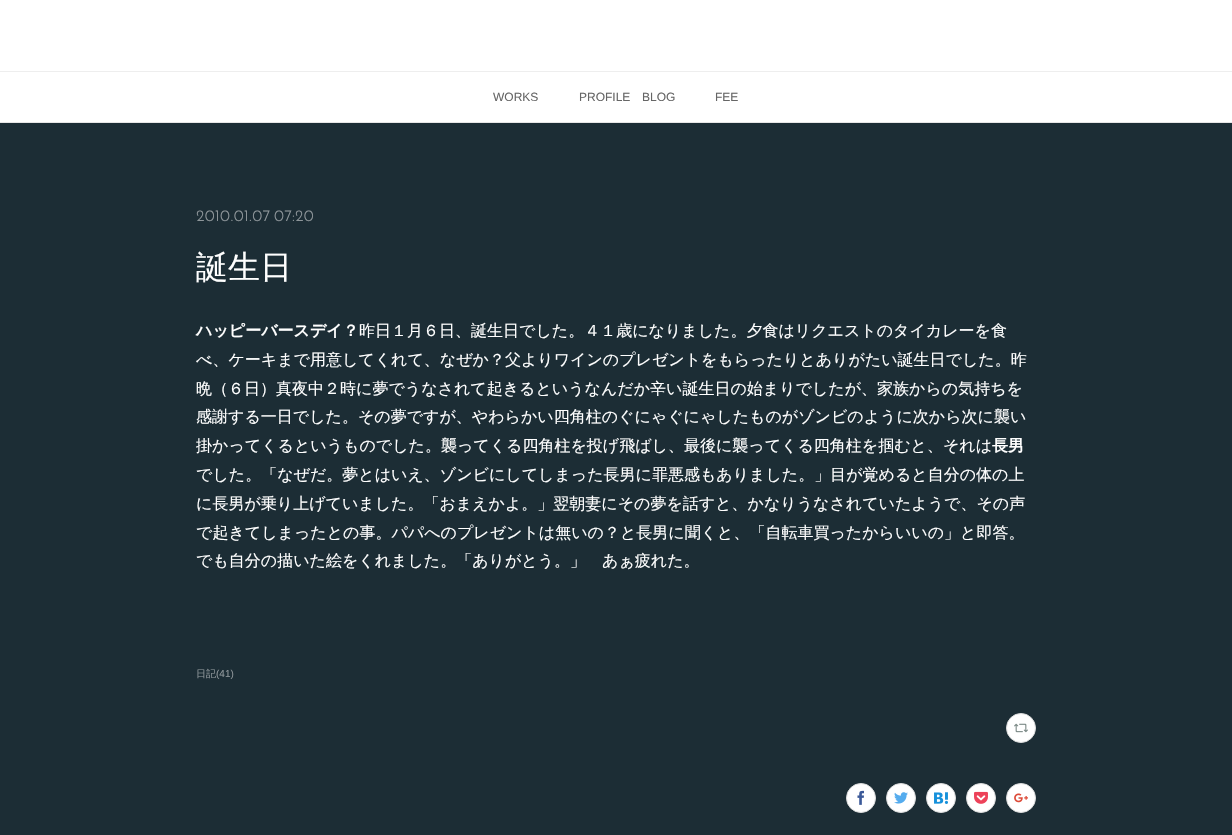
void draw(SkCanvas* canvas) {
  SkPaint paint;
  paint.setAntiAlias(true);
  auto face = [&](const char* family, int weight, float size, bool italic = false) {
    SkFontStyle style(weight, SkFontStyle::kNormal_Width,
      italic ? SkFontStyle::kItalic_Slant : SkFontStyle::kUpright_Slant);
    SkFont result(fontMgr->matchFamilyStyle(family, style), size);
    result.setSubpixel(true);
    return result;
  };
  auto paste = [&](const char* path, float x, float y, float w, float h) {
    auto image = SkImages::DeferredFromEncodedData(SkData::MakeFromFileName(path));
    canvas->drawImageRect(image, SkRect::MakeXYWH(x, y, w, h), SkSamplingOptions());
  };
  canvas->clear(0xff1c2d35);
  {
    const struct { float x, y, w, h; SkColor color; } items[] = {
      {0, 0, 1232, 71, 0xffffffff},
      {0, 71, 1232, 1, 0xffeeeeee},
      {0, 72, 1232, 50, 0xffffffff},
      {0, 122, 1232, 1, 0xffe6e6e6},
    };
    for (auto [x, y, w, h, color] : items) {
      paint.setColor(color);
      canvas->drawRect(SkRect::MakeXYWH(x, y, w, h), paint);
    }
  }
  paint.setColor(0xffffffff);
  canvas->drawCircle(1021, 728, 14.5f, paint);
  paint.setStroke(true);
  paint.setStrokeWidth(1);
  paint.setColor(0xffdddddd);
  canvas->drawCircle(1021, 728, 14.5f, paint);
  paste("img/1.png", 1014, 723, 14, 10);
  paint.setStroke(false);
  paint.setColor(0xffffffff);
  canvas->drawCircle(861, 798, 14.5f, paint);
  paint.setStroke(true);
  paint.setColor(0xffdddddd);
  canvas->drawCircle(861, 798, 14.5f, paint);
  paste("img/2.png", 857, 790, 7, 15);
  paint.setStroke(false);
  paint.setColor(0xffffffff);
  canvas->drawCircle(901, 798, 14.5f, paint);
  paint.setStroke(true);
  paint.setColor(0xffdddddd);
  canvas->drawCircle(901, 798, 14.5f, paint);
  paste("img/3.png", 894, 792, 14, 12);
  paint.setStroke(false);
  paint.setColor(0xffffffff);
  canvas->drawCircle(941, 798, 14.5f, paint);
  paint.setStroke(true);
  paint.setColor(0xffdddddd);
  canvas->drawCircle(941, 798, 14.5f, paint);
  paste("img/4.png", 934, 792, 14, 12);
  paint.setStroke(false);
  paint.setColor(0xffffffff);
  canvas->drawCircle(981, 798, 14.5f, paint);
  paint.setStroke(true);
  paint.setColor(0xffdddddd);
  canvas->drawCircle(981, 798, 14.5f, paint);
  paste("img/5.png", 974, 791, 14, 13);
  paint.setStroke(false);
  paint.setColor(0xffffffff);
  canvas->drawCircle(1021, 798, 14.5f, paint);
  paint.setStroke(true);
  paint.setColor(0xffdddddd);
  canvas->drawCircle(1021, 798, 14.5f, paint);
  paste("img/6.png", 1014, 793, 14, 10);
  auto f0 = face("Liberation Sans", 400, 12);
  paint.setStroke(false);
  paint.setColor(0xff666666);
  {
    const struct { const char* s; float x, y; } items[] = {
      {"WORKS", 493, 101},
      {"PROFILE", 579, 101},
      {"BLOG", 642, 101},
      {"FEE", 715, 101},
    };
    for (auto [s, x, y] : items) {
      canvas->drawString(s, x, y, f0, paint);
    }
  }
  auto f1 = face("Josefin Sans", 400, 16);
  paint.setColor(0xff8e969a);
  canvas->drawString("2010.01.07 07:20", 196, 221, f1, paint);
  auto f2 = face("WenQuanYi Zen Hei", 500, 32);
  paint.setColor(0xffffffff);
  canvas->drawString("誕生日", 196, 278, f2, paint);
  auto f3 = face("WenQuanYi Zen Hei", 700, 16);
  canvas->drawString("ハッピーバースデイ？", 196, 336, f3, paint);
  auto f4 = face("WenQuanYi Zen Hei", 500, 16);
  {
    const struct { const char* s; float x, y; } items[] = {
      {"昨日１月６日、誕生日でした。４１歳になりました。夕食はリクエストのタイカレーを食", 359, 336},
      {"べ、ケーキまで用意してくれて、なぜか？父よりワインのプレゼントをもらったりとありがたい誕生日でした。昨", 196, 365},
      {"晩（６日）真夜中２時に夢でうなされて起きるというなんだか辛い誕生日の始まりでしたが、家族からの気持ちを", 196, 394},
      {"感謝する一日でした。その夢ですが、やわらかい四角柱のぐにゃぐにゃしたものがゾンビのように次から次に襲い", 196, 422},
      {"掛かってくるというものでした。襲ってくる四角柱を投げ飛ばし、最後に襲ってくる四角柱を掴むと、それは", 196, 451},
    };
    for (auto [s, x, y] : items) {
      canvas->drawString(s, x, y, f4, paint);
    }
  }
  canvas->drawString("長男", 992, 451, f3, paint);
  {
    const struct { const char* s; float x, y; } items[] = {
      {"でした。「なぜだ。夢とはいえ、ゾンビにしてしまった長男に罪悪感もありました。」目が覚めると自分の体の上", 196, 480},
      {"に長男が乗り上げていました。「おまえかよ。」翌朝妻にその夢を話すと、かなりうなされていたようで、その声", 196, 509},
      {"で起きてしまったとの事。パパへのプレゼントは無いの？と長男に聞くと、「自転車買ったからいいの」と即答。", 196, 538},
      {"でも自分の描いた絵をくれました。「ありがとう。」　あぁ疲れた。", 196, 566},
    };
    for (auto [s, x, y] : items) {
      canvas->drawString(s, x, y, f4, paint);
    }
  }
  auto f5 = face("WenQuanYi Zen Hei", 500, 10);
  paint.setColor(0xff8e969a);
  canvas->drawString("日記", 196, 677, f5, paint);
  auto f6 = face("Liberation Sans", 400, 10);
  canvas->drawString("(41)", 216, 677, f6, paint);
}
